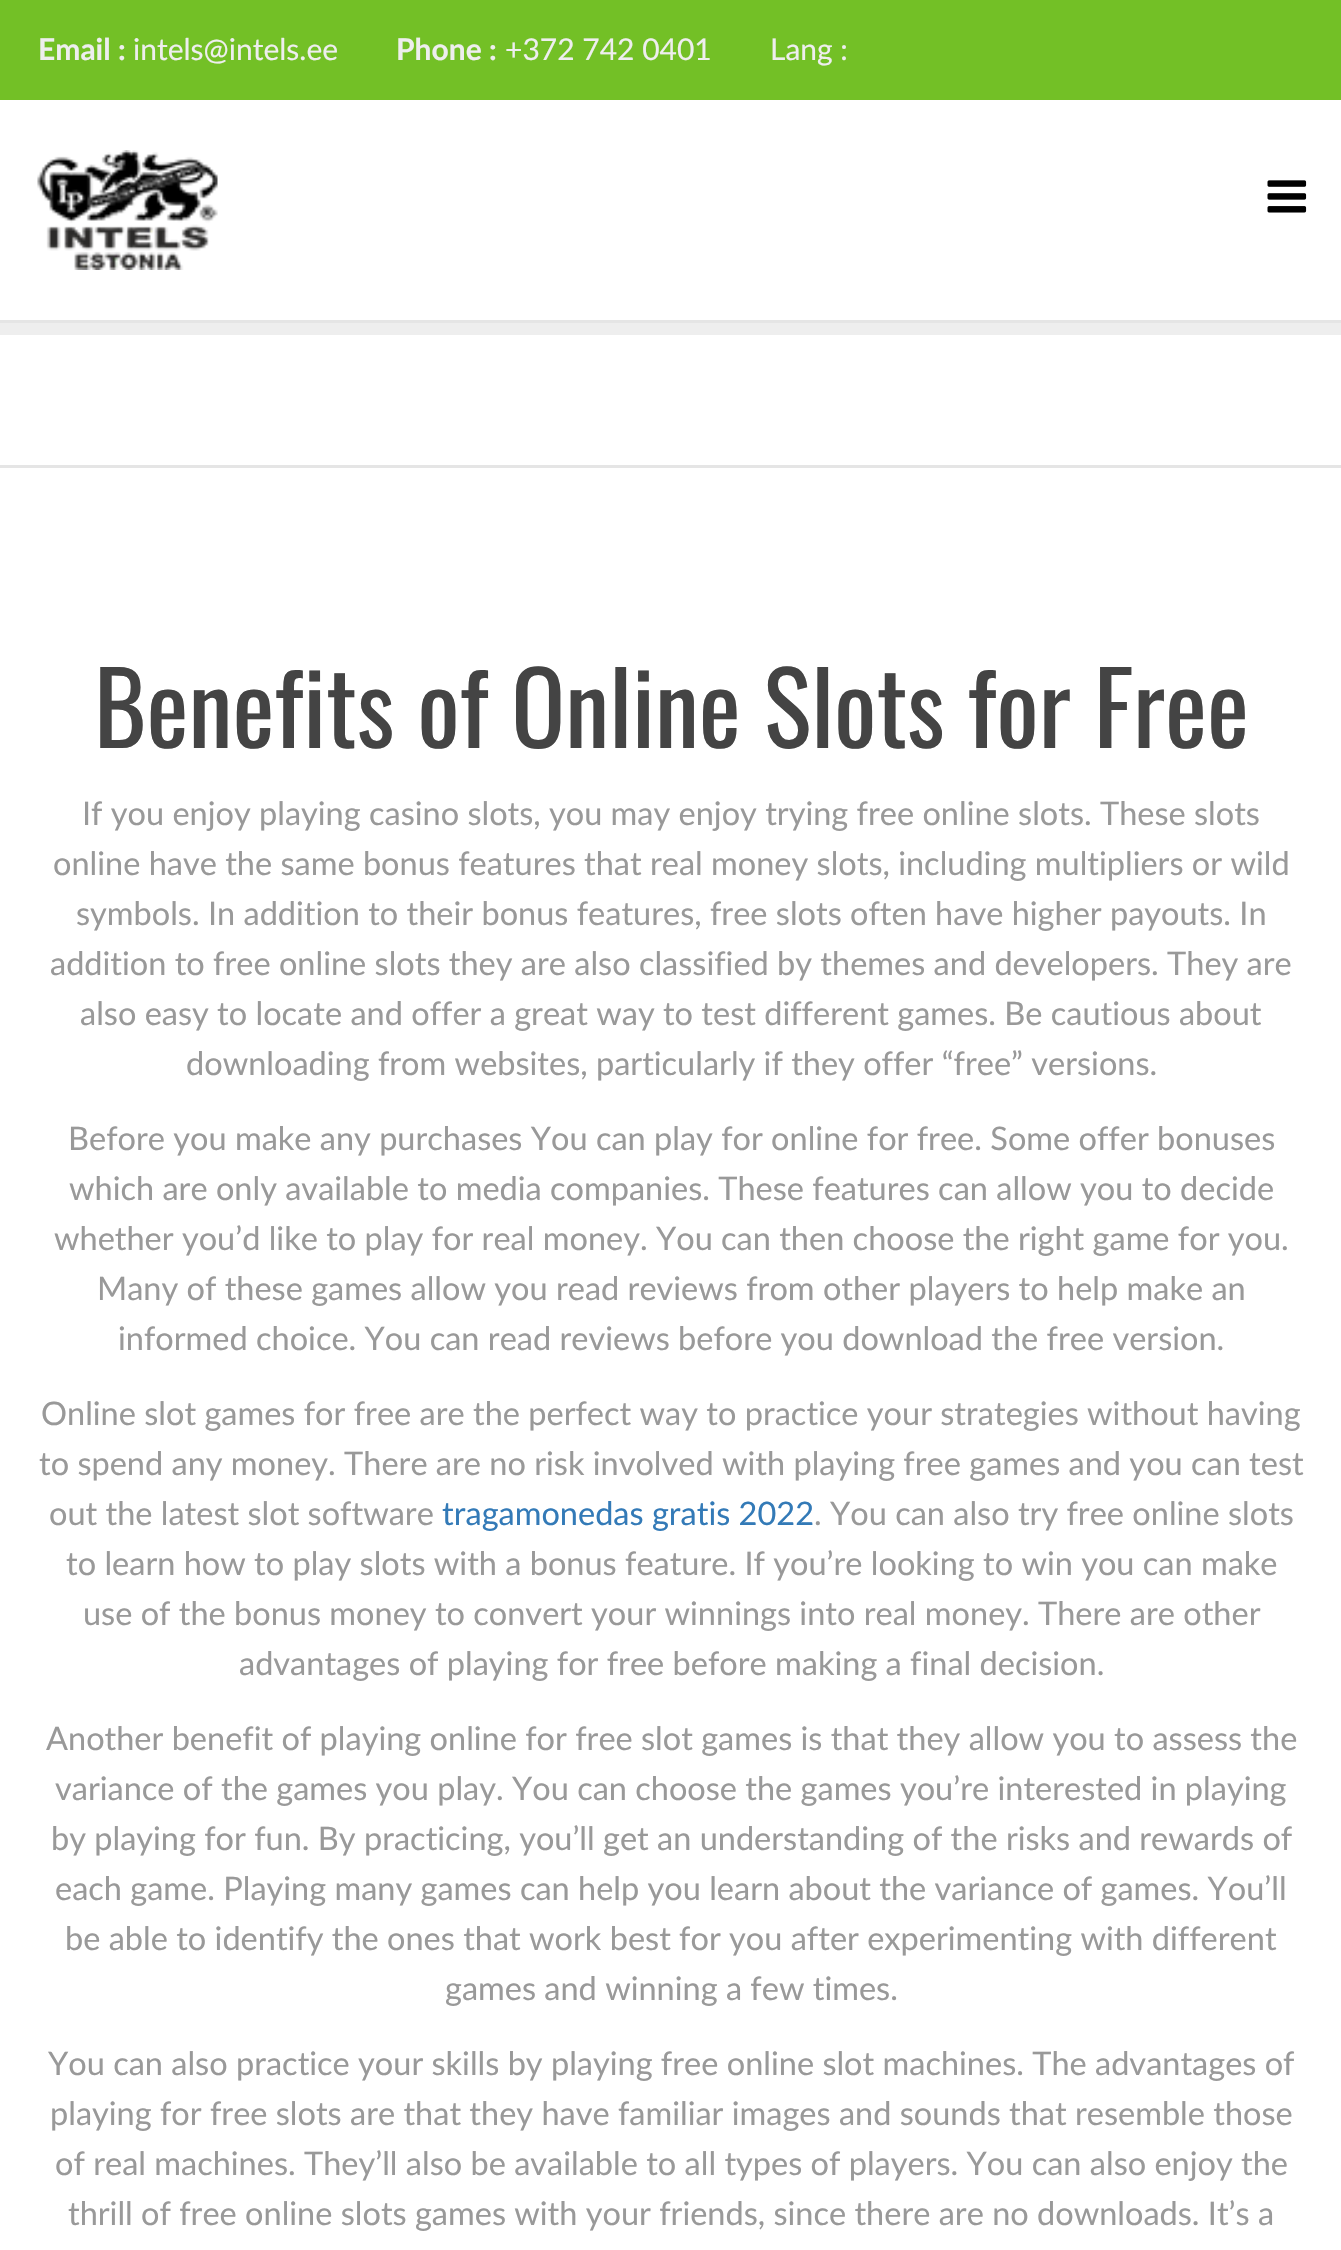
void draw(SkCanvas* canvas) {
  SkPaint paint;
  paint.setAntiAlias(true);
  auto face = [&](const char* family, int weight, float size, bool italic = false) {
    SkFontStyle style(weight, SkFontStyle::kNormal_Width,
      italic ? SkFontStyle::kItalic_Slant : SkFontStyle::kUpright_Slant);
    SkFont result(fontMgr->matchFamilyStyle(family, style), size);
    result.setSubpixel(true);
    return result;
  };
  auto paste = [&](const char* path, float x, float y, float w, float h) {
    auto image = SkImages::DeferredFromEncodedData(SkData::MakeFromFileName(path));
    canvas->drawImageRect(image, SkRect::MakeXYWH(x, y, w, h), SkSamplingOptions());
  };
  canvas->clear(0xffffffff);
  paint.setColor(0xff73c026);
  canvas->drawRect(SkRect::MakeXYWH(0, 0, 1341, 100), paint);
  paint.setColor(0xffe5e5e5);
  canvas->drawRect(SkRect::MakeXYWH(0, 320, 1341, 3), paint);
  paste("img/1.png", 37, 150, 181, 120);
  paste("img/2.png", 1267, 180, 40, 33);
  paint.setColor(0xffeeeeee);
  canvas->drawRect(SkRect::MakeXYWH(0, 323, 1341, 12), paint);
  paint.setColor(0xffe5e5e5);
  canvas->drawRect(SkRect::MakeXYWH(0, 465, 1341, 3), paint);
  auto f0 = face("Lato", 700, 30);
  paint.setColor(0xffeeeeee);
  canvas->drawString("Email :", 38, 60, f0, paint);
  auto f1 = face("Lato", 400, 30);
  canvas->drawString("intels@intels.ee", 133, 60, f1, paint);
  canvas->drawString("Phone :", 396, 60, f0, paint);
  canvas->drawString("+372 742 0401", 505, 60, f1, paint);
  canvas->drawString("Lang :", 770, 60, f1, paint);
  auto f2 = face("Oswald", 400, 100);
  paint.setColor(0xff444444);
  canvas->drawString("Benefits of Online Slots for Free", 94, 748, f2, paint);
  auto f3 = face("Lato", 400, 32.5f);
  paint.setColor(0xff999999);
  {
    const struct { const char* s; float x, y; } items[] = {
      {"If you enjoy playing casino slots, you may enjoy trying free online slots. These slots", 82, 825},
      {"online have the same bonus features that real money slots, including multipliers or wild", 53, 875},
      {"symbols. In addition to their bonus features, free slots often have higher payouts. In", 76, 925},
      {"addition to free online slots they are also classified by themes and developers. They are", 50, 975},
      {"also easy to locate and offer a great way to test different games. Be cautious about", 80, 1025},
      {"downloading from websites, particularly if they offer “free” versions.", 186, 1075},
      {"Before you make any purchases You can play for online for free. Some offer bonuses", 68, 1150},
      {"which are only available to media companies. These features can allow you to decide", 69, 1200},
      {"whether you’d like to play for real money. You can then choose the right game for you.", 54, 1250},
      {"Many of these games allow you read reviews from other players to help make an", 97, 1300},
      {"informed choice. You can read reviews before you download the free version.", 118, 1350},
      {"Online slot games for free are the perfect way to practice your strategies without having", 41, 1425},
      {"to spend any money. There are no risk involved with playing free games and you can test", 39, 1475},
      {"out the latest slot software", 49, 1525},
    };
    for (auto [s, x, y] : items) {
      canvas->drawString(s, x, y, f3, paint);
    }
  }
  paint.setColor(0xff337ab7);
  canvas->drawString("tragamonedas gratis 2022", 442, 1525, f3, paint);
  paint.setColor(0xff999999);
  {
    const struct { const char* s; float x, y; } items[] = {
      {". You can also try free online slots", 814, 1525},
      {"to learn how to play slots with a bonus feature. If you’re looking to win you can make", 66, 1575},
      {"use of the bonus money to convert your winnings into real money. There are other", 83, 1625},
      {"advantages of playing for free before making a final decision.", 239, 1675},
      {"Another benefit of playing online for free slot games is that they allow you to assess the", 46, 1750},
      {"variance of the games you play. You can choose the games you’re interested in playing", 55, 1800},
      {"by playing for fun. By practicing, you’ll get an understanding of the risks and rewards of", 51, 1850},
      {"each game. Playing many games can help you learn about the variance of games. You’ll", 55, 1900},
      {"be able to identify the ones that work best for you after experimenting with different", 65, 1950},
      {"games and winning a few times.", 445, 2000},
      {"You can also practice your skills by playing free online slot machines. The advantages of", 48, 2075},
      {"playing for free slots are that they have familiar images and sounds that resemble those", 50, 2125},
      {"of real machines. They’ll also be available to all types of players. You can also enjoy the", 55, 2175},
      {"thrill of free online slots games with your friends, since there are no downloads. It’s a", 68, 2225},
    };
    for (auto [s, x, y] : items) {
      canvas->drawString(s, x, y, f3, paint);
    }
  }
}
